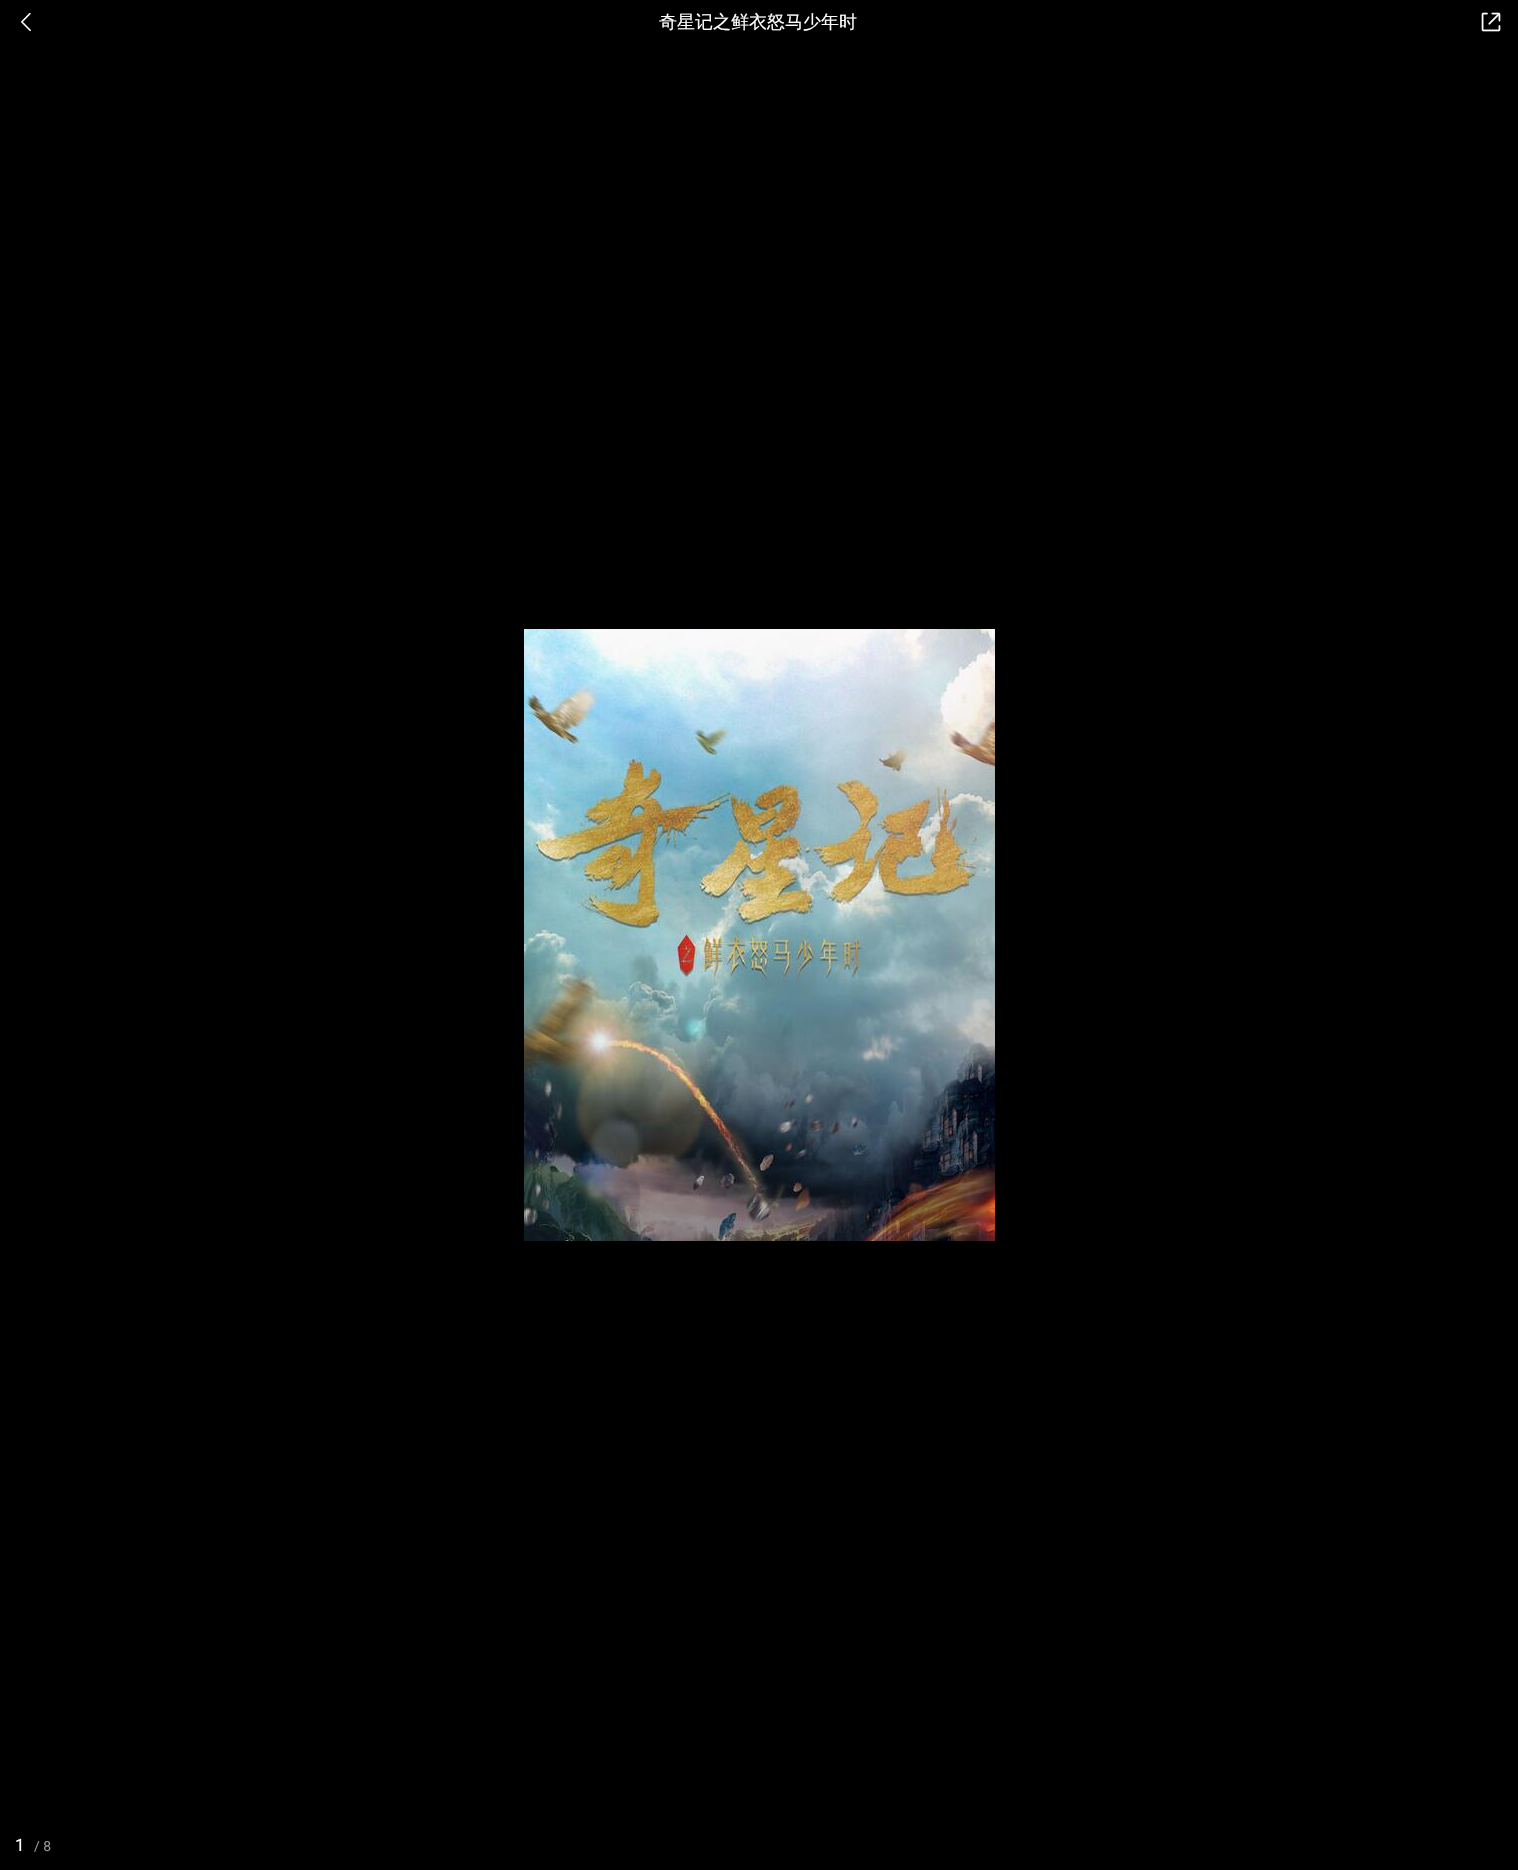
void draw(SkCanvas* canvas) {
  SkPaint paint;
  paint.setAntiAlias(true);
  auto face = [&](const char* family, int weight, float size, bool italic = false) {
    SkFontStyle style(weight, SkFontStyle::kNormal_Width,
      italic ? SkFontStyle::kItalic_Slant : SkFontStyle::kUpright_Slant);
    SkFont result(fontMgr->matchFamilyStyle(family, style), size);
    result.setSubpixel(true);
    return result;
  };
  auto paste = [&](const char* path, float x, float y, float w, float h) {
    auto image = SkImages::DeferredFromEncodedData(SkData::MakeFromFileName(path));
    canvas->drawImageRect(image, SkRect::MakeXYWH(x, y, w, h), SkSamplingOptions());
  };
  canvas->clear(0xff000000);
  paste("img/1.png", 21, 12, 10, 20);
  paste("img/2.png", 1481, 12, 20, 20);
  paste("img/3.png", 524, 629, 471, 612);
  auto f0 = face("WenQuanYi Zen Hei", 500, 18);
  paint.setColor(0xffffffff);
  canvas->drawString("奇星记之鲜衣怒马少年时", 659, 28, f0, paint);
  auto f1 = face("Roboto", 400, 17);
  canvas->drawString("1", 15, 1851, f1, paint);
  auto f2 = face("Roboto", 400, 14);
  paint.setColor(0xff999999);
  canvas->drawString("/ 8", 34, 1851, f2, paint);
}
